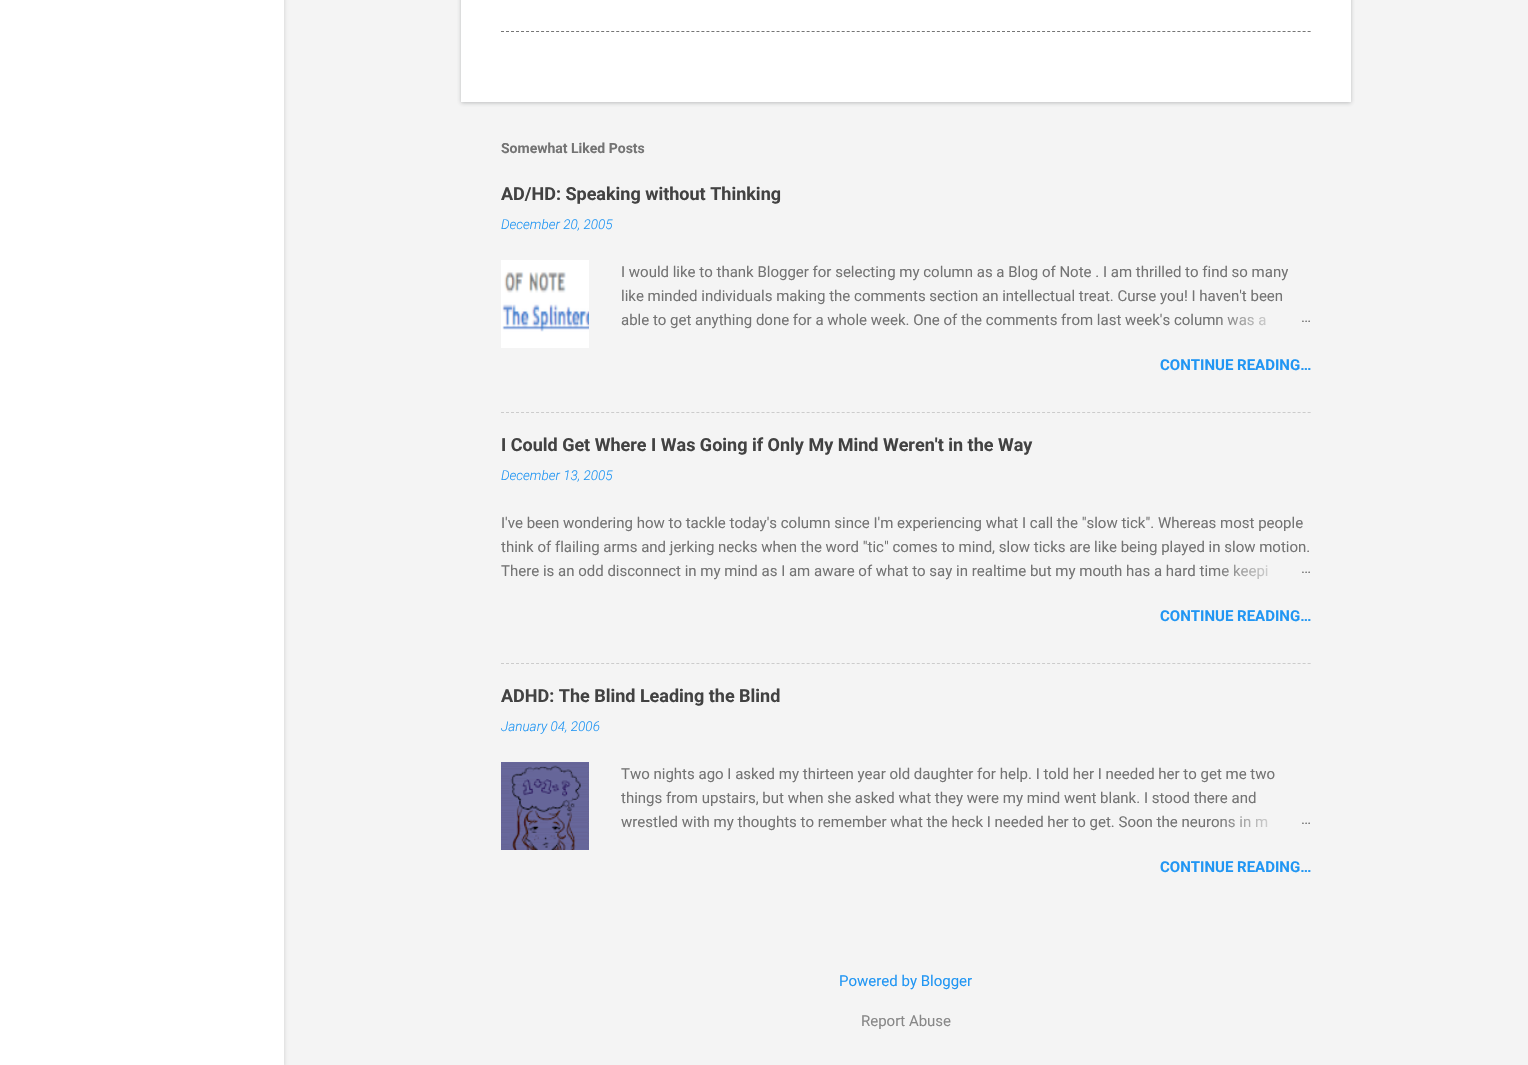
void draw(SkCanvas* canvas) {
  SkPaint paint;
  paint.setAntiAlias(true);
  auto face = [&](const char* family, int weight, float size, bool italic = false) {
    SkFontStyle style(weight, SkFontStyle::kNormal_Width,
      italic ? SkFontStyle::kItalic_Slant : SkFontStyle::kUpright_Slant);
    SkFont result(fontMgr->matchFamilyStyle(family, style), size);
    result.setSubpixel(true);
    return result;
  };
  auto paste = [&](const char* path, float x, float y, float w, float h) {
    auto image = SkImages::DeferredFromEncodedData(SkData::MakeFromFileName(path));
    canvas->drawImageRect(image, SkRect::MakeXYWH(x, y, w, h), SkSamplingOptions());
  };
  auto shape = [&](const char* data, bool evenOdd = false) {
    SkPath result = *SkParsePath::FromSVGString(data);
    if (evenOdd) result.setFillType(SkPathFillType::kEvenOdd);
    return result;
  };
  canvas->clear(0xfff4f4f4);
  paint.setColor(0x1a000000);
  paint.setMaskFilter(SkMaskFilter::MakeBlur(kNormal_SkBlurStyle, 1.5f));
  canvas->drawRect(SkRect::MakeXYWH(1, -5, 284, 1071), paint);
  paint.setMaskFilter(nullptr);
  paint.setColor(0xffffffff);
  canvas->drawRect(SkRect::MakeXYWH(0, 0, 284, 1065), paint);
  paint.setColor(0x4d383a3f);
  paint.setMaskFilter(SkMaskFilter::MakeBlur(kNormal_SkBlurStyle, 2));
  canvas->drawRect(SkRect::MakeXYWH(461, -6, 890, 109), paint);
  paint.setMaskFilter(nullptr);
  paint.setColor(0xffffffff);
  canvas->drawRect(SkRect::MakeXYWH(461, 0, 890, 102), paint);
  paint.setStroke(true);
  paint.setStrokeWidth(1);
  paint.setColor(0xff757575);
  paint.setPathEffect(SkDashPathEffect::Make({{3, 2.01f}}, 0));
  canvas->drawPath(shape("M501 31.5H1311"), paint);
  paint.setPathEffect(nullptr);
  paste("img/1.png", 501, 260, 88, 88);
  paint.setColor(0xffcccccc);
  paint.setPathEffect(SkDashPathEffect::Make({{3, 2.01f}}, 0));
  canvas->drawPath(shape("M501 412.5H1311"), paint);
  paint.setPathEffect(nullptr);
  paint.setPathEffect(SkDashPathEffect::Make({{3, 2.01f}}, 0));
  canvas->drawPath(shape("M501 663.5H1311"), paint);
  paint.setPathEffect(nullptr);
  paste("img/2.png", 501, 762, 88, 88);
  auto f0 = face("Roboto", 700, 14);
  paint.setStroke(false);
  paint.setColor(0xff747474);
  canvas->drawString("Somewhat Liked Posts", 501, 153, f0, paint);
  auto f1 = face("Roboto", 700, 18);
  paint.setColor(0xff424242);
  canvas->drawString("AD/HD: Speaking without Thinking", 501, 200, f1, paint);
  auto f2 = face("Roboto", 300, 13.5f, true);
  paint.setColor(0xff2196f3);
  canvas->drawString("December 20, 2005", 501, 229, f2, paint);
  auto f3 = face("Roboto", 400, 15);
  paint.setColor(0xff747474);
  {
    const struct { const char* s; float x, y; } items[] = {
      {"I would like to thank Blogger for selecting my column as a Blog of Note . I am thrilled to find so many", 621, 277},
      {"like minded individuals making the comments section an intellectual treat. Curse you! I haven't been", 621, 301},
      {"able to get anything done for a whole week. One of the comments from last week's column was a", 621, 325},
    };
    for (auto [s, x, y] : items) {
      canvas->drawString(s, x, y, f3, paint);
    }
  }
  {
    const SkColor colors[] = {0xfff4f4f4, 0xfff4f4f4, 0x00f4f4f4};
    const float stops[] = {0, 0.2f, 1};
    const SkPoint ends[] = {{1311, 320}, {1215, 320}};
    paint.setShader(SkGradientShader::MakeLinear(ends, colors, stops, 3, SkTileMode::kClamp));
    paint.setAlpha(255);
  }
  canvas->drawRect(SkRect::MakeXYWH(1217, 316, 49, 10), paint);
  paint.setShader(nullptr);
  paint.setColor(0xff747474);
  canvas->drawString("…", 1301, 322, f3, paint);
  auto f4 = face("Roboto", 700, 15);
  paint.setColor(0xff2196f3);
  canvas->drawString("CONTINUE READING…", 1160, 370, f4, paint);
  paint.setColor(0xff424242);
  canvas->drawString("I Could Get Where I Was Going if Only My Mind Weren't in the Way", 501, 451, f1, paint);
  paint.setColor(0xff2196f3);
  canvas->drawString("December 13, 2005", 501, 480, f2, paint);
  paint.setColor(0xff747474);
  {
    const struct { const char* s; float x, y; } items[] = {
      {"I've been wondering how to tackle today's column since I'm experiencing what I call the \"slow tick\". Whereas most people", 501, 528},
      {"think of flailing arms and jerking necks when the word \"tic\" comes to mind, slow ticks are like being played in slow motion.", 501, 552},
      {"There is an odd disconnect in my mind as I am aware of what to say in realtime but my mouth has a hard time keepi", 501, 576},
    };
    for (auto [s, x, y] : items) {
      canvas->drawString(s, x, y, f3, paint);
    }
  }
  {
    const SkColor colors[] = {0xfff4f4f4, 0xfff4f4f4, 0x00f4f4f4};
    const float stops[] = {0, 0.2f, 1};
    const SkPoint ends[] = {{1311, 571}, {1215, 571}};
    paint.setShader(SkGradientShader::MakeLinear(ends, colors, stops, 3, SkTileMode::kClamp));
    paint.setAlpha(255);
  }
  canvas->drawRect(SkRect::MakeXYWH(1217, 564, 51, 16), paint);
  paint.setShader(nullptr);
  paint.setColor(0xff747474);
  canvas->drawString("…", 1301, 573, f3, paint);
  paint.setColor(0xff2196f3);
  canvas->drawString("CONTINUE READING…", 1160, 621, f4, paint);
  paint.setColor(0xff424242);
  canvas->drawString("ADHD: The Blind Leading the Blind", 501, 702, f1, paint);
  paint.setColor(0xff2196f3);
  canvas->drawString("January 04, 2006", 501, 731, f2, paint);
  paint.setColor(0xff747474);
  {
    const struct { const char* s; float x, y; } items[] = {
      {"Two nights ago I asked my thirteen year old daughter for help. I told her I needed her to get me two", 621, 779},
      {"things from upstairs, but when she asked what they were my mind went blank. I stood there and", 621, 803},
      {"wrestled with my thoughts to remember what the heck I needed her to get. Soon the neurons in m", 621, 827},
    };
    for (auto [s, x, y] : items) {
      canvas->drawString(s, x, y, f3, paint);
    }
  }
  {
    const SkColor colors[] = {0xfff4f4f4, 0xfff4f4f4, 0x00f4f4f4};
    const float stops[] = {0, 0.2f, 1};
    const SkPoint ends[] = {{1311, 822}, {1215, 822}};
    paint.setShader(SkGradientShader::MakeLinear(ends, colors, stops, 3, SkTileMode::kClamp));
    paint.setAlpha(255);
  }
  canvas->drawRect(SkRect::MakeXYWH(1217, 816, 51, 11), paint);
  paint.setShader(nullptr);
  paint.setColor(0xff747474);
  canvas->drawString("…", 1301, 824, f3, paint);
  paint.setColor(0xff2196f3);
  canvas->drawString("CONTINUE READING…", 1160, 872, f4, paint);
  canvas->drawString("Powered by Blogger", 839, 986, f3, paint);
  paint.setColor(0xff888888);
  canvas->drawString("Report Abuse", 861, 1026, f3, paint);
}
